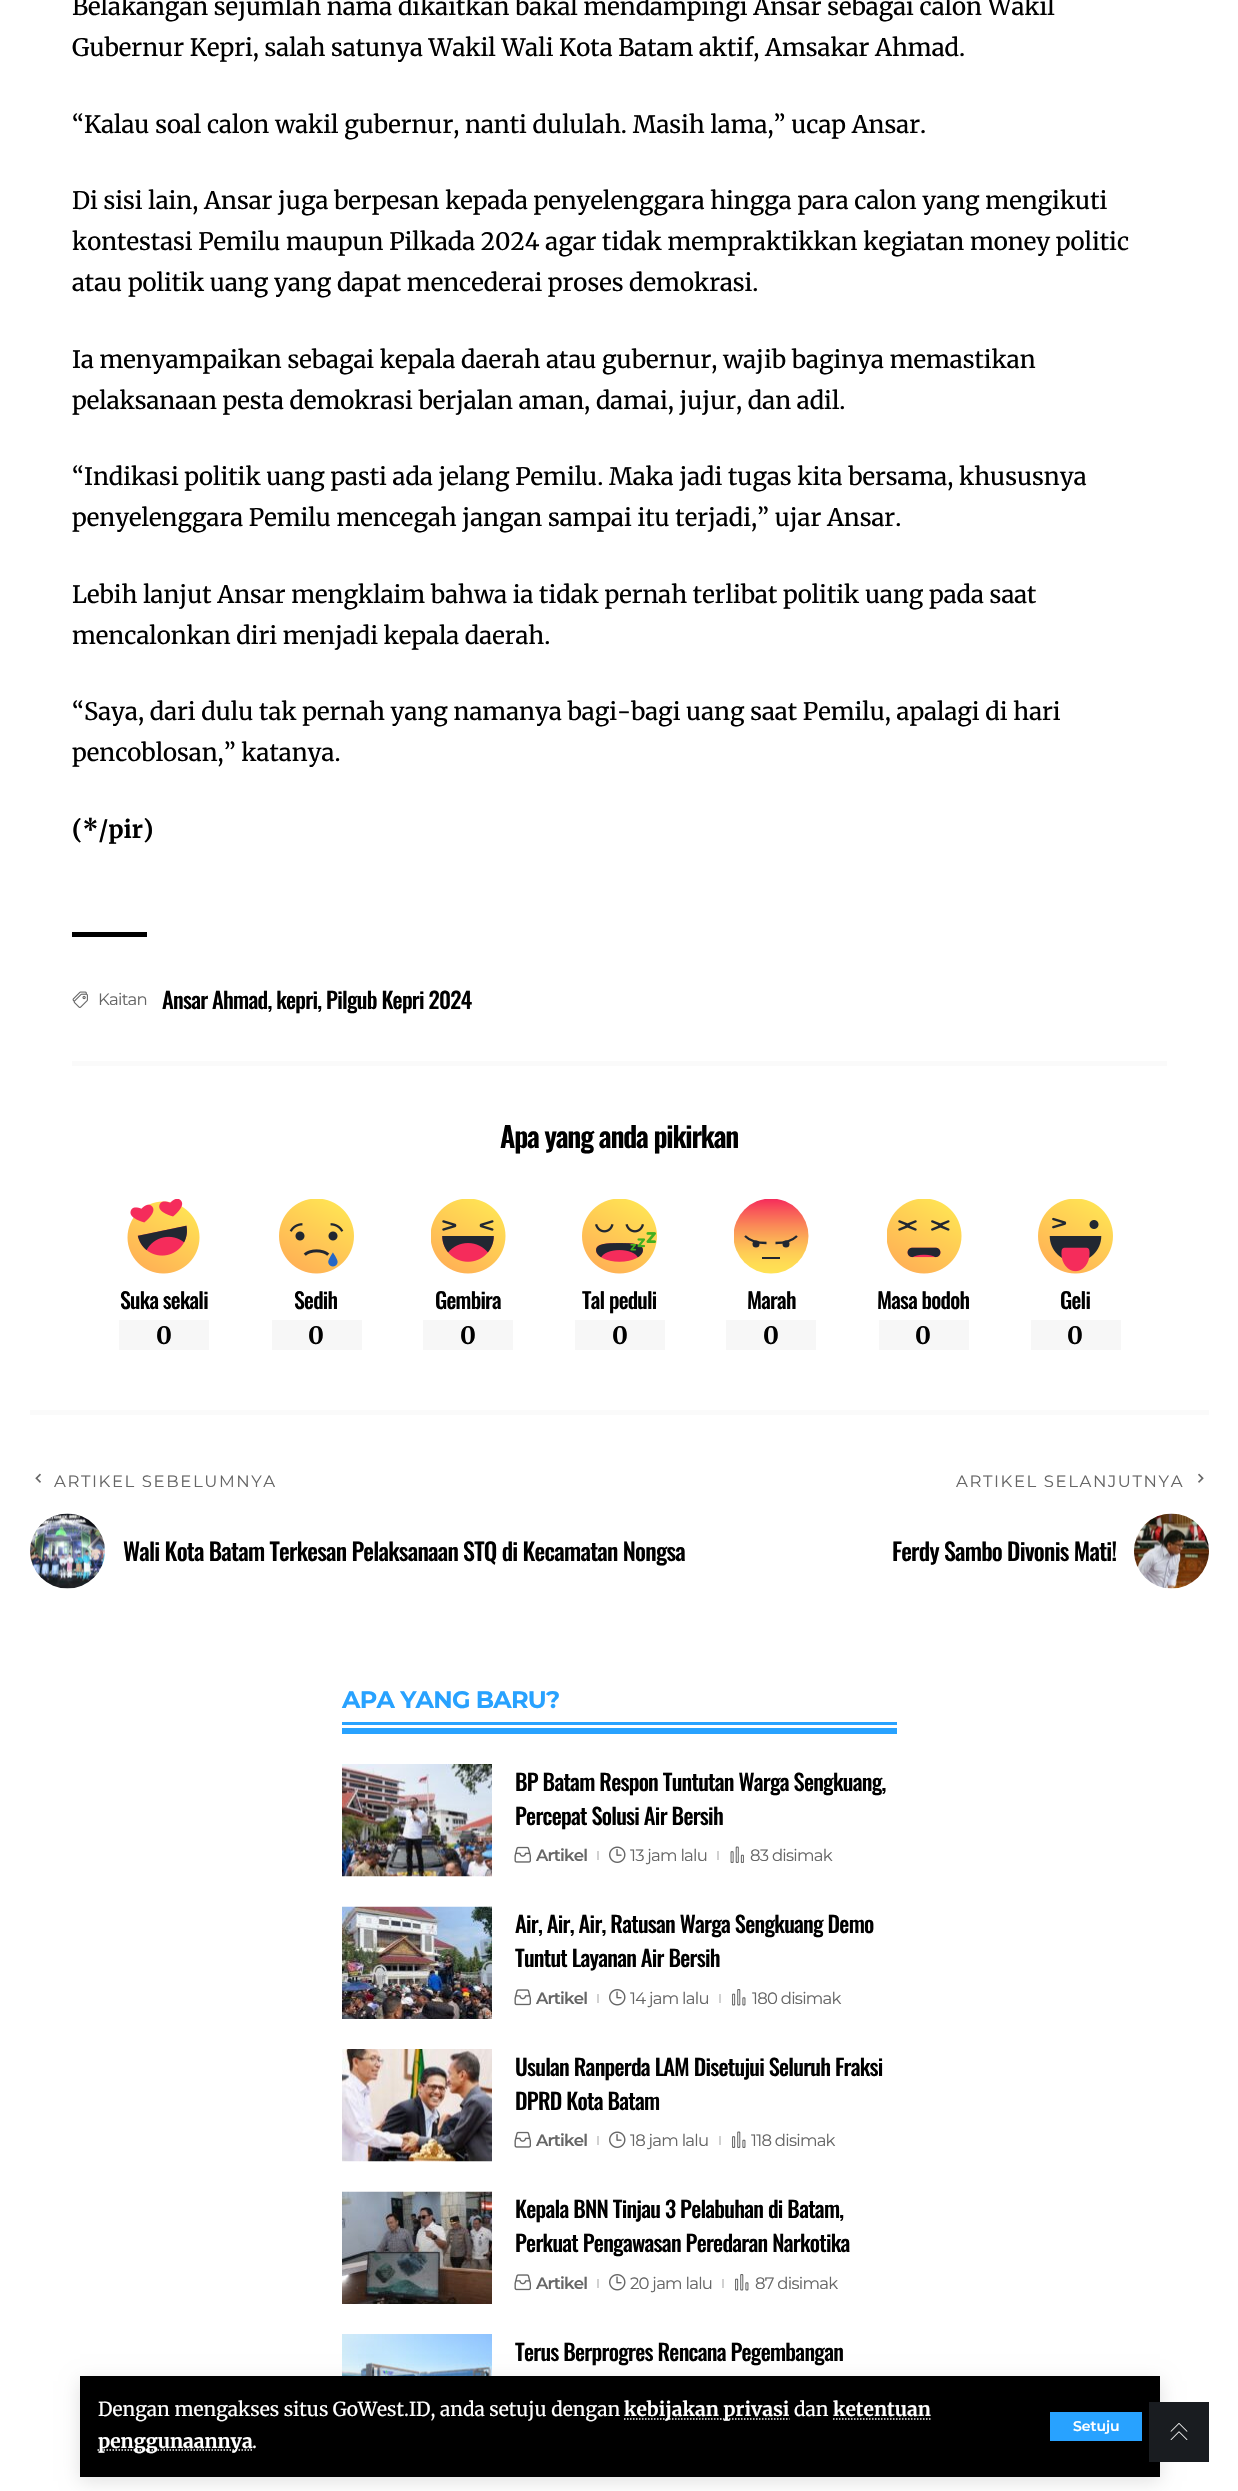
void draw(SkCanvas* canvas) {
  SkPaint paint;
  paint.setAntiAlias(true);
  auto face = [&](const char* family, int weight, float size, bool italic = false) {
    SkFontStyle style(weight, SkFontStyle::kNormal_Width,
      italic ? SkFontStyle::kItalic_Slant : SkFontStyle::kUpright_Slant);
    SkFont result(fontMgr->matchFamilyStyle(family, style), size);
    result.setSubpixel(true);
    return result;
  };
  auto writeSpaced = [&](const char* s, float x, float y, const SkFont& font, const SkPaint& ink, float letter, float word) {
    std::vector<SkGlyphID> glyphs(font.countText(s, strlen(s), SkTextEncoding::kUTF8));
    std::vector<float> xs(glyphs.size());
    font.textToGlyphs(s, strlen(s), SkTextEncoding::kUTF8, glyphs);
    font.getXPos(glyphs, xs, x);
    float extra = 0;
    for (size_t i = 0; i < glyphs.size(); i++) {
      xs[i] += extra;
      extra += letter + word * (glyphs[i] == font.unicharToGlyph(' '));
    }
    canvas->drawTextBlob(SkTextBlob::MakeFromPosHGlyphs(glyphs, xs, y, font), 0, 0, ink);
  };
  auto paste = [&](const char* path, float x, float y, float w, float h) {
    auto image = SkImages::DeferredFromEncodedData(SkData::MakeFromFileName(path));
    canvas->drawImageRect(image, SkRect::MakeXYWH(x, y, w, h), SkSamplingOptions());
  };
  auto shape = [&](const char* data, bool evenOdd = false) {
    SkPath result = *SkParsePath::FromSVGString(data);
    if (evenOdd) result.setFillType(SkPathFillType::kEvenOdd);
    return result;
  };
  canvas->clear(0xffffffff);
  paint.setColor(0xff000000);
  canvas->drawRect(SkRect::MakeXYWH(72, 932, 75, 5), paint);
  paste("img/1.png", 72, 991, 16, 17);
  paint.setColor(0xfffafafa);
  canvas->drawRect(SkRect::MakeXYWH(72, 1061, 1095, 5), paint);
  paste("img/2.png", 127, 1199, 73, 75);
  paint.setColor(0xfff7f7f7);
  canvas->drawRect(SkRect::MakeXYWH(119, 1320, 90, 30), paint);
  paste("img/3.png", 279, 1199, 75, 75);
  canvas->drawRect(SkRect::MakeXYWH(272, 1320, 90, 30), paint);
  paste("img/4.png", 431, 1199, 75, 75);
  canvas->drawRect(SkRect::MakeXYWH(423, 1320, 90, 30), paint);
  paste("img/5.png", 582, 1199, 75, 75);
  canvas->drawRect(SkRect::MakeXYWH(575, 1320, 90, 30), paint);
  canvas->save();
  canvas->clipRect(SkRect::MakeXYWH(734, 1199, 75, 75));
  {
    const SkColor colors[] = {0xffffe254, 0xffffdc54, 0xfffecc55, 0xfffcb156, 0xfffa8b57, 0xfff85b59, 0xfff52c5b};
    const float stops[] = {0, 0.12f, 0.27f, 0.44f, 0.63f, 0.83f, 1};
    const SkPoint ends[] = {{771, 1273}, {771, 1199}};
    paint.setShader(SkGradientShader::MakeLinear(ends, colors, stops, 7, SkTileMode::kClamp));
    paint.setAlpha(255);
  }
  canvas->drawCircle(771, 1236, 37.5f, paint);
  canvas->restore();
  paint.setShader(nullptr);
  paint.setColor(0xff212731);
  canvas->drawCircle(756, 1244, 3.5f, paint);
  canvas->drawCircle(786, 1244, 3.5f, paint);
  paint.setStroke(true);
  paint.setStrokeWidth(2.3f);
  canvas->drawPath(shape("M745 1236C747.5 1238.5 754.5 1243 766.5 1243M797 1236C794.5 1238.5 787.5 1243 775.5 1243"), paint);
  paint.setStroke(false);
  canvas->drawRect(SkRect::MakeXYWH(762, 1257, 18, 2), paint);
  paint.setColor(0xfff7f7f7);
  canvas->drawRect(SkRect::MakeXYWH(726, 1320, 90, 30), paint);
  paste("img/6.png", 887, 1199, 75, 75);
  canvas->drawRect(SkRect::MakeXYWH(879, 1320, 90, 30), paint);
  paste("img/7.png", 1038, 1199, 75, 75);
  canvas->drawRect(SkRect::MakeXYWH(1031, 1320, 90, 30), paint);
  paint.setColor(0xfffafafa);
  canvas->drawRect(SkRect::MakeXYWH(30, 1410, 1179, 5), paint);
  paste("img/8.png", 35, 1473, 6, 10);
  paste("img/9.png", 30, 1513, 75, 76);
  paste("img/10.png", 1198, 1473, 6, 10);
  paste("img/11.png", 1134, 1513, 75, 76);
  paint.setColor(0xff28a2ff);
  canvas->drawRect(SkRect::MakeXYWH(342, 1728, 555, 6), paint);
  canvas->drawRect(SkRect::MakeXYWH(342, 1722, 555, 3), paint);
  paste("img/12.png", 342, 1764, 150, 113);
  paste("img/13.png", 514, 1846, 17, 17);
  paint.setColor(0xffd1d1d1);
  canvas->drawRect(SkRect::MakeXYWH(597, 1851, 2, 9), paint);
  paste("img/14.png", 609, 1846, 17, 17);
  canvas->drawRect(SkRect::MakeXYWH(717, 1851, 2, 9), paint);
  paste("img/15.png", 730, 1846, 14, 17);
  paste("img/16.png", 342, 1906, 150, 113);
  paste("img/17.png", 514, 1989, 17, 17);
  canvas->drawRect(SkRect::MakeXYWH(597, 1994, 2, 9), paint);
  paste("img/18.png", 609, 1989, 17, 17);
  canvas->drawRect(SkRect::MakeXYWH(719, 1994, 2, 9), paint);
  paste("img/19.png", 732, 1989, 14, 17);
  paste("img/20.png", 342, 2049, 150, 113);
  paste("img/13.png", 514, 2131, 17, 17);
  canvas->drawRect(SkRect::MakeXYWH(597, 2136, 2, 9), paint);
  paste("img/14.png", 609, 2131, 17, 17);
  canvas->drawRect(SkRect::MakeXYWH(719, 2136, 2, 9), paint);
  paste("img/21.png", 732, 2131, 14, 17);
  paste("img/22.png", 342, 2191, 150, 113);
  paste("img/17.png", 514, 2274, 17, 17);
  canvas->drawRect(SkRect::MakeXYWH(597, 2279, 2, 9), paint);
  paste("img/18.png", 609, 2274, 17, 17);
  canvas->drawRect(SkRect::MakeXYWH(722, 2279, 2, 9), paint);
  paste("img/19.png", 735, 2274, 14, 17);
  paste("img/23.png", 342, 2334, 150, 42);
  paint.setColor(0x1f000000);
  paint.setMaskFilter(SkMaskFilter::MakeBlur(kNormal_SkBlurStyle, 9));
  canvas->drawRect(SkRect::MakeXYWH(80, 2381, 1080, 100), paint);
  paint.setMaskFilter(nullptr);
  paint.setColor(0xff000000);
  canvas->drawRect(SkRect::MakeXYWH(80, 2376, 1080, 101), paint);
  paint.setStroke(true);
  paint.setStrokeWidth(1.5f);
  paint.setColor(0xffffffff);
  paint.setPathEffect(SkDashPathEffect::Make({{1.5f, 1.5f}}, 0));
  canvas->drawPath(shape("M624 2419H789.5"), paint);
  paint.setPathEffect(nullptr);
  paint.setPathEffect(SkDashPathEffect::Make({{1.5f, 1.5f}}, 0));
  canvas->drawPath(shape("M833 2419H931"), paint);
  paint.setPathEffect(nullptr);
  paint.setPathEffect(SkDashPathEffect::Make({{1.5f, 1.5f}}, 0));
  canvas->drawPath(shape("M97.5 2450H252"), paint);
  paint.setPathEffect(nullptr);
  paint.setStroke(false);
  paint.setColor(0xff28a2ff);
  canvas->drawRect(SkRect::MakeXYWH(1050, 2412, 92, 29), paint);
  paint.setColor(0xff191c20);
  canvas->drawRect(SkRect::MakeXYWH(1149, 2402, 60, 60), paint);
  paste("img/24.png", 1170, 2423, 18, 17);
  auto f0 = face("Merriweather", 400, 24);
  paint.setColor(0xff000000);
  {
    const struct { const char* s; float x, y; } items[] = {
      {"Belakangan sejumlah nama dikaitkan bakal mendampingi Ansar sebagai calon Wakil", 72, 15},
      {"Gubernur Kepri, salah satunya Wakil Wali Kota Batam aktif, Amsakar Ahmad.", 72, 56},
      {"“Kalau soal calon wakil gubernur, nanti dululah. Masih lama,” ucap Ansar.", 72, 133},
      {"Di sisi lain, Ansar juga berpesan kepada penyelenggara hingga para calon yang mengikuti", 72, 209},
      {"kontestasi Pemilu maupun Pilkada 2024 agar tidak mempraktikkan kegiatan money politic", 72, 250},
      {"atau politik uang yang dapat mencederai proses demokrasi.", 72, 291},
      {"Ia menyampaikan sebagai kepala daerah atau gubernur, wajib baginya memastikan", 72, 368},
      {"pelaksanaan pesta demokrasi berjalan aman, damai, jujur, dan adil.", 72, 409},
      {"“Indikasi politik uang pasti ada jelang Pemilu. Maka jadi tugas kita bersama, khususnya", 72, 485},
      {"penyelenggara Pemilu mencegah jangan sampai itu terjadi,” ujar Ansar.", 72, 526},
      {"Lebih lanjut Ansar mengklaim bahwa ia tidak pernah terlibat politik uang pada saat", 72, 603},
      {"mencalonkan diri menjadi kepala daerah.", 72, 644},
      {"“Saya, dari dulu tak pernah yang namanya bagi-bagi uang saat Pemilu, apalagi di hari", 72, 720},
      {"pencoblosan,” katanya.", 72, 761},
    };
    for (auto [s, x, y] : items) {
      canvas->drawString(s, x, y, f0, paint);
    }
  }
  auto f1 = face("Merriweather", 700, 24);
  canvas->drawString("(*/pir)", 72, 838, f1, paint);
  auto f2 = face("Montserrat", 400, 16.5f);
  paint.setColor(0xff666666);
  writeSpaced("Kaitan", 98, 1005, f2, paint, -0.75f, 0);
  auto f3 = face("Oswald", 500, 22.5f);
  paint.setColor(0xff000000);
  writeSpaced("Ansar Ahmad, kepri, Pilgub Kepri 2024", 162, 1009, f3, paint, -0.75f, 0);
  auto f4 = face("Oswald", 600, 28.5f);
  writeSpaced("Apa yang anda pikirkan", 500, 1148, f4, paint, -1.2f, 0);
  auto f5 = face("Oswald", 500, 22);
  writeSpaced("Suka sekali", 120, 1309, f5, paint, -0.75f, 0);
  canvas->drawString("0", 156, 1344, f1, paint);
  writeSpaced("Sedih", 294, 1309, f5, paint, -0.75f, 0);
  canvas->drawString("0", 308, 1344, f1, paint);
  writeSpaced("Gembira", 435, 1309, f5, paint, -0.75f, 0);
  canvas->drawString("0", 460, 1344, f1, paint);
  writeSpaced("Tal peduli", 582, 1309, f5, paint, -0.75f, 0);
  canvas->drawString("0", 612, 1344, f1, paint);
  writeSpaced("Marah", 747, 1309, f5, paint, -0.75f, 0);
  canvas->drawString("0", 763, 1344, f1, paint);
  writeSpaced("Masa bodoh", 877, 1309, f5, paint, -0.75f, 0);
  canvas->drawString("0", 915, 1344, f1, paint);
  writeSpaced("Geli", 1060, 1309, f5, paint, -0.75f, 0);
  canvas->drawString("0", 1067, 1344, f1, paint);
  paint.setColor(0xff666666);
  writeSpaced("ARTIKEL SEBELUMNYA", 54, 1487, f2, paint, 1.6f, 0);
  auto f6 = face("Oswald", 500, 24);
  paint.setColor(0xff000000);
  writeSpaced("Wali Kota Batam Terkesan Pelaksanaan STQ di Kecamatan Nongsa", 123, 1561, f6, paint, -0.75f, 0);
  paint.setColor(0xff666666);
  writeSpaced("ARTIKEL SELANJUTNYA", 956, 1487, f2, paint, 1.6f, 0);
  paint.setColor(0xff000000);
  writeSpaced("Ferdy Sambo Divonis Mati!", 892, 1561, f6, paint, -0.75f, 0);
  auto f7 = face("Montserrat", 700, 24);
  paint.setColor(0xff28a2ff);
  writeSpaced("APA YANG BARU?", 342, 1708, f7, paint, -0.75f, 0);
  paint.setColor(0xff000000);
  writeSpaced("BP Batam Respon Tuntutan Warga Sengkuang,", 515, 1791, f3, paint, -0.75f, 0);
  writeSpaced("Percepat Solusi Air Bersih", 515, 1825, f3, paint, -0.75f, 0);
  auto f8 = face("Montserrat", 600, 16.5f);
  paint.setColor(0xff666666);
  writeSpaced("Artikel", 536, 1861, f8, paint, -0.75f, 0);
  writeSpaced("13 jam lalu", 630, 1861, f2, paint, -0.75f, 0);
  writeSpaced("83 disimak", 750, 1861, f2, paint, -0.75f, 0);
  paint.setColor(0xff000000);
  writeSpaced("Air, Air, Air, Ratusan Warga Sengkuang Demo", 515, 1933, f3, paint, -0.75f, 0);
  writeSpaced("Tuntut Layanan Air Bersih", 515, 1967, f3, paint, -0.75f, 0);
  paint.setColor(0xff666666);
  writeSpaced("Artikel", 536, 2004, f8, paint, -0.75f, 0);
  writeSpaced("14 jam lalu", 630, 2004, f2, paint, -0.75f, 0);
  writeSpaced("180 disimak", 752, 2004, f2, paint, -0.75f, 0);
  paint.setColor(0xff000000);
  writeSpaced("Usulan Ranperda LAM Disetujui Seluruh Fraksi", 515, 2076, f3, paint, -0.75f, 0);
  writeSpaced("DPRD Kota Batam", 515, 2110, f3, paint, -0.75f, 0);
  paint.setColor(0xff666666);
  writeSpaced("Artikel", 536, 2146, f8, paint, -0.75f, 0);
  writeSpaced("18 jam lalu", 630, 2146, f2, paint, -0.75f, 0);
  writeSpaced("118 disimak", 751, 2146, f2, paint, -0.75f, 0);
  paint.setColor(0xff000000);
  writeSpaced("Kepala BNN Tinjau 3 Pelabuhan di Batam,", 515, 2218, f3, paint, -0.75f, 0);
  writeSpaced("Perkuat Pengawasan Peredaran Narkotika", 515, 2252, f3, paint, -0.75f, 0);
  paint.setColor(0xff666666);
  writeSpaced("Artikel", 536, 2289, f8, paint, -0.75f, 0);
  writeSpaced("20 jam lalu", 630, 2289, f2, paint, -0.75f, 0);
  writeSpaced("87 disimak", 755, 2289, f2, paint, -0.75f, 0);
  paint.setColor(0xff000000);
  writeSpaced("Terus Berprogres Rencana Pegembangan", 515, 2361, f3, paint, -0.75f, 0);
  auto f9 = face("Merriweather", 400, 19.2f);
  paint.setColor(0xffffffff);
  canvas->drawString("Dengan mengakses situs GoWest.ID, anda setuju dengan", 98, 2416, f9, paint);
  auto f10 = face("Merriweather", 700, 19.2f);
  canvas->drawString("kebijakan privasi", 624, 2416, f10, paint);
  canvas->drawString("dan", 794, 2416, f9, paint);
  canvas->drawString("ketentuan", 833, 2416, f10, paint);
  canvas->drawString("penggunaannya", 98, 2448, f10, paint);
  canvas->drawString(".", 252, 2448, f9, paint);
  auto f11 = face("Montserrat", 600, 14);
  canvas->drawString("Setuju", 1073, 2431, f11, paint);
}
